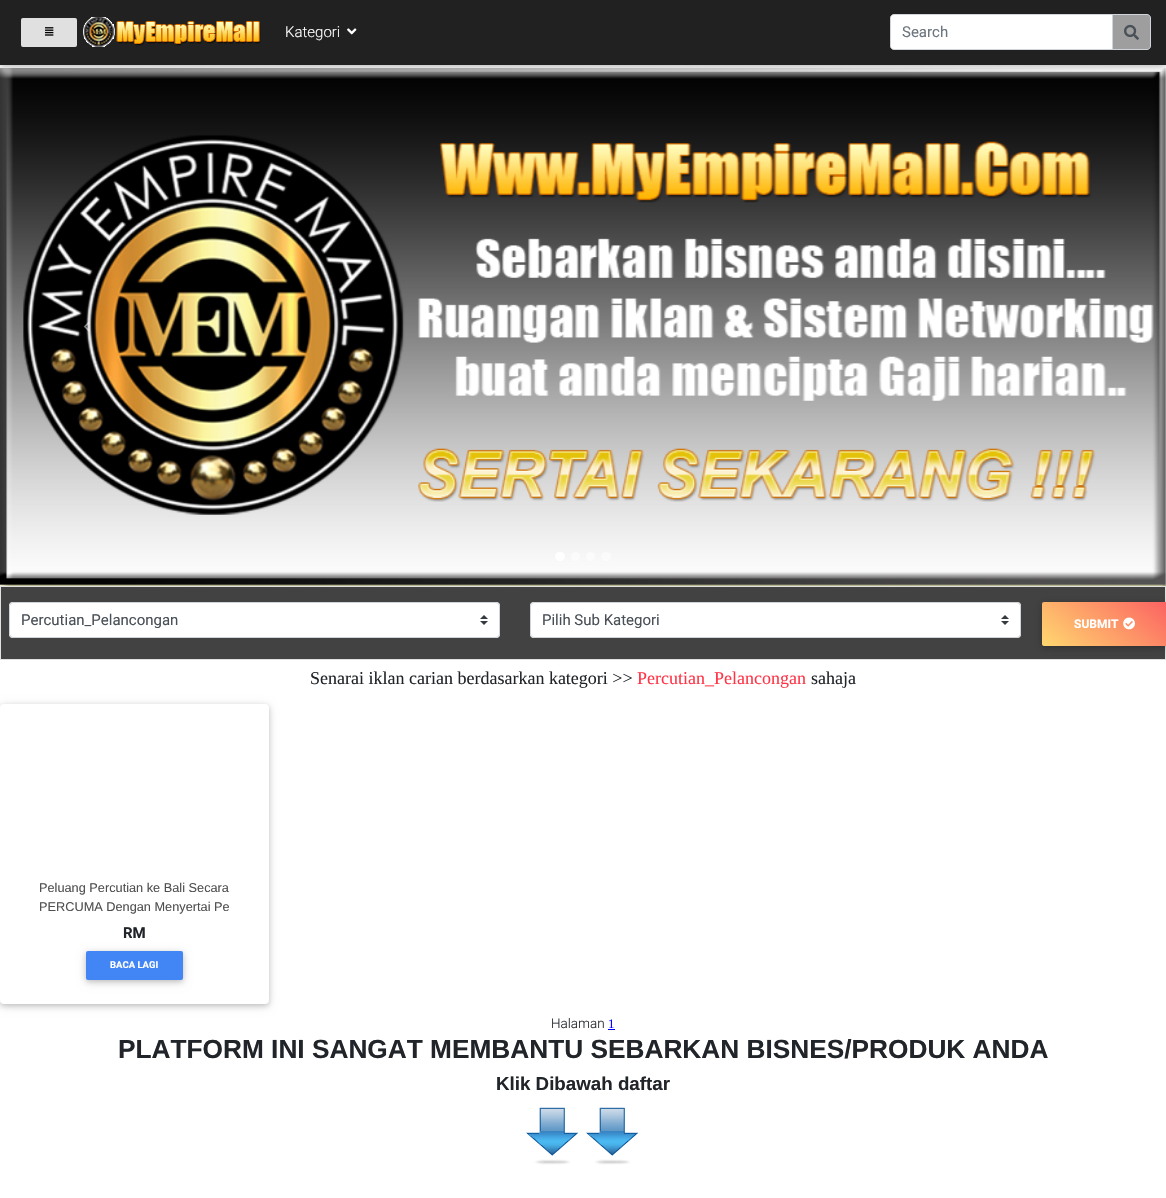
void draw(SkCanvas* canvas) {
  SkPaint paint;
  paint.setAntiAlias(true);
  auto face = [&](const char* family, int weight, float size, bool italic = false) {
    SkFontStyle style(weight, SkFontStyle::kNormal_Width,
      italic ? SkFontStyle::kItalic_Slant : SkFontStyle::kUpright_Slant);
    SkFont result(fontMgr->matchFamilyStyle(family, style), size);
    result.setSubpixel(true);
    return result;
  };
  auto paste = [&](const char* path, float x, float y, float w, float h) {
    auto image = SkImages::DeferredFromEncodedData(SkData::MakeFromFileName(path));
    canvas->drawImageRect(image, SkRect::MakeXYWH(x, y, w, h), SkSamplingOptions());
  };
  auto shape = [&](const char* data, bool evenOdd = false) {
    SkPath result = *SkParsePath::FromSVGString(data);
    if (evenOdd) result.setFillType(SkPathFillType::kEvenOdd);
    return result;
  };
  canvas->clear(0xffffffff);
  paste("img/5.png", 0, 68, 1166, 518);
  paint.setColor(0x1f000000);
  paint.setMaskFilter(SkMaskFilter::MakeBlur(kNormal_SkBlurStyle, 5));
  canvas->drawRect(SkRect::MakeXYWH(0, 2, 1166, 65), paint);
  paint.setMaskFilter(nullptr);
  paint.setColor(0x29000000);
  paint.setMaskFilter(SkMaskFilter::MakeBlur(kNormal_SkBlurStyle, 2.5f));
  canvas->drawRect(SkRect::MakeXYWH(0, 2, 1166, 65), paint);
  paint.setMaskFilter(nullptr);
  paint.setColor(0xff212121);
  canvas->drawRect(SkRect::MakeXYWH(0, 0, 1166, 65), paint);
  paint.setColor(0xffe0e0e0);
  canvas->drawRoundRect(SkRect::MakeXYWH(21, 18, 56, 29), 2, 2, paint);
  paste("img/1.png", 45, 27, 9, 9);
  paste("img/2.png", 83, 17, 178, 30);
  paste("img/3.png", 347, 28, 10, 7);
  paint.setColor(0xff9e9e9e);
  canvas->drawPath(shape("M1112.5 14.5H1147C1149 14.5 1150.5 16 1150.5 18V46C1150.5 48 1149 49.5 1147 49.5H1112.5Z"), paint);
  paint.setStroke(true);
  paint.setStrokeWidth(1);
  paint.setColor(0xffced4da);
  canvas->drawPath(shape("M1112.5 14.5H1147C1149 14.5 1150.5 16 1150.5 18V46C1150.5 48 1149 49.5 1147 49.5H1112.5Z"), paint);
  paint.setStroke(false);
  paint.setColor(0xffffffff);
  canvas->drawPath(shape("M894 14.5H1112.5V49.5H894C892 49.5 890.5 48 890.5 46V18C890.5 16 892 14.5 894 14.5Z"), paint);
  paint.setStroke(true);
  paint.setColor(0xffced4da);
  canvas->drawPath(shape("M894 14.5H1112.5V49.5H894C892 49.5 890.5 48 890.5 46V18C890.5 16 892 14.5 894 14.5Z"), paint);
  paste("img/4.png", 1124, 24, 15, 16);
  paste("img/6.png", 83, 322, 7, 10);
  paint.setStroke(false);
  paint.setColor(0x80ffffff);
  canvas->drawRect(SkRect::MakeXYWH(1076, 329, 3, 3), paint);
  paint.setColor(0xffffffff);
  canvas->drawRoundRect(SkRect::MakeXYWH(555, 552, 10, 9), 4.5f, 4.5f, paint);
  paint.setColor(0x80ffffff);
  canvas->drawCircle(575.5f, 556.5f, 4.5f, paint);
  canvas->drawCircle(590.5f, 556.5f, 4.5f, paint);
  canvas->drawRoundRect(SkRect::MakeXYWH(601, 552, 10, 9), 4.5f, 4.5f, paint);
  paint.setColor(0xff424242);
  canvas->drawRect(SkRect::MakeXYWH(0.5f, 586.5f, 1165, 73), paint);
  paint.setStroke(true);
  paint.setColor(0xffe0e0e0);
  canvas->drawRect(SkRect::MakeXYWH(0.5f, 586.5f, 1165, 73), paint);
  paint.setStroke(false);
  paint.setColor(0xffffffff);
  canvas->drawRoundRect(SkRect::MakeXYWH(9, 602, 491, 36), 4, 4, paint);
  paste("img/7.png", 480, 615, 8, 10);
  paint.setStroke(true);
  paint.setColor(0xffced4da);
  canvas->drawRoundRect(SkRect::MakeXYWH(9.5f, 602.5f, 490, 35), 3.5f, 3.5f, paint);
  paint.setStroke(false);
  paint.setColor(0xffffffff);
  canvas->drawRoundRect(SkRect::MakeXYWH(530, 602, 491, 36), 4, 4, paint);
  paste("img/7.png", 1001, 615, 8, 10);
  paint.setStroke(true);
  paint.setColor(0xffced4da);
  canvas->drawRoundRect(SkRect::MakeXYWH(530.5f, 602.5f, 490, 35), 3.5f, 3.5f, paint);
  paint.setStroke(false);
  paint.setColor(0x1f000000);
  paint.setMaskFilter(SkMaskFilter::MakeBlur(kNormal_SkBlurStyle, 5));
  canvas->drawRoundRect(SkRect::MakeXYWH(1042, 604, 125, 44), 2, 2, paint);
  paint.setMaskFilter(nullptr);
  paint.setColor(0x29000000);
  paint.setMaskFilter(SkMaskFilter::MakeBlur(kNormal_SkBlurStyle, 2.5f));
  canvas->drawRoundRect(SkRect::MakeXYWH(1042, 604, 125, 44), 2, 2, paint);
  paint.setMaskFilter(nullptr);
  {
    const SkColor colors[] = {0xffffd86f, 0xfffc6262};
    const float stops[] = {0, 1};
    const SkPoint ends[] = {{1068, 668}, {1141, 580}};
    paint.setShader(SkGradientShader::MakeLinear(ends, colors, stops, 2, SkTileMode::kClamp));
    paint.setAlpha(255);
  }
  canvas->drawRoundRect(SkRect::MakeXYWH(1042, 602, 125, 44), 2, 2, paint);
  paste("img/8.png", 1123, 617, 12, 13);
  paint.setShader(nullptr);
  paint.setColor(0x1f000000);
  paint.setMaskFilter(SkMaskFilter::MakeBlur(kNormal_SkBlurStyle, 5));
  canvas->drawRoundRect(SkRect::MakeXYWH(0, 706, 269, 300), 4, 4, paint);
  paint.setMaskFilter(nullptr);
  paint.setColor(0x29000000);
  paint.setMaskFilter(SkMaskFilter::MakeBlur(kNormal_SkBlurStyle, 2.5f));
  canvas->drawRoundRect(SkRect::MakeXYWH(0, 706, 269, 300), 4, 4, paint);
  paint.setMaskFilter(nullptr);
  paint.setColor(0xffffffff);
  canvas->drawRoundRect(SkRect::MakeXYWH(0, 704, 269, 300), 4, 4, paint);
  paint.setColor(0x1f000000);
  paint.setMaskFilter(SkMaskFilter::MakeBlur(kNormal_SkBlurStyle, 5));
  canvas->drawRoundRect(SkRect::MakeXYWH(86, 953, 97, 29), 2, 2, paint);
  paint.setMaskFilter(nullptr);
  paint.setColor(0x29000000);
  paint.setMaskFilter(SkMaskFilter::MakeBlur(kNormal_SkBlurStyle, 2.5f));
  canvas->drawRoundRect(SkRect::MakeXYWH(86, 953, 97, 29), 2, 2, paint);
  paint.setMaskFilter(nullptr);
  paint.setColor(0xff4285f4);
  canvas->drawRoundRect(SkRect::MakeXYWH(86, 951, 97, 29), 2, 2, paint);
  paint.setColor(0xff0000ff);
  canvas->drawRect(SkRect::MakeXYWH(608, 1029, 7, 1), paint);
  paste("img/9.png", 526, 1107, 53, 58);
  paste("img/9.png", 586, 1107, 53, 58);
  auto f0 = face("Roboto", 300, 15);
  paint.setColor(0xffffffff);
  canvas->drawString("Kategori", 285, 37, f0, paint);
  auto f1 = face("Roboto", 400, 15);
  paint.setColor(0xff6c757d);
  canvas->drawString("Search", 902, 37, f1, paint);
  paint.setColor(0xff495057);
  canvas->drawString("Percutian_Pelancongan", 21, 625, f1, paint);
  canvas->drawString("Pilih Sub Kategori", 542, 625, f1, paint);
  auto f2 = face("Roboto", 700, 12);
  paint.setColor(0xffffffff);
  canvas->drawString("SUBMIT", 1074, 628, f2, paint);
  auto f3 = face("Liberation Serif", 400, 18);
  paint.setColor(0xff212529);
  canvas->drawString("Senarai iklan carian berdasarkan kategori >>", 310, 684, f3, paint);
  paint.setColor(0xffff3547);
  canvas->drawString("Percutian_Pelancongan", 637, 684, f3, paint);
  paint.setColor(0xff212529);
  canvas->drawString("sahaja", 811, 684, f3, paint);
  auto f4 = face("Liberation Sans", 400, 12.75f);
  paint.setColor(0xff4f4f4f);
  canvas->drawString("Peluang Percutian ke Bali Secara", 39, 892, f4, paint);
  canvas->drawString("PERCUMA Dengan Menyertai Pe", 39, 911, f4, paint);
  auto f5 = face("Roboto", 700, 15);
  paint.setColor(0xff212529);
  canvas->drawString("RM", 123, 938, f5, paint);
  auto f6 = face("Roboto", 700, 9.5f);
  paint.setColor(0xffffffff);
  canvas->drawString("BACA LAGI", 110, 968, f6, paint);
  auto f7 = face("Roboto", 300, 13.5f);
  paint.setColor(0xff212529);
  canvas->drawString("Halaman", 551, 1028, f7, paint);
  auto f8 = face("Liberation Serif", 400, 13);
  paint.setColor(0xff0000ff);
  canvas->drawString("1", 608, 1028, f8, paint);
  auto f9 = face("Liberation Sans", 700, 26.25f);
  paint.setColor(0xff212529);
  canvas->drawString("PLATFORM INI SANGAT MEMBANTU SEBARKAN BISNES/PRODUK ANDA", 118, 1058, f9, paint);
  auto f10 = face("Liberation Sans", 700, 18.75f);
  canvas->drawString("Klik Dibawah daftar", 496, 1090, f10, paint);
}
